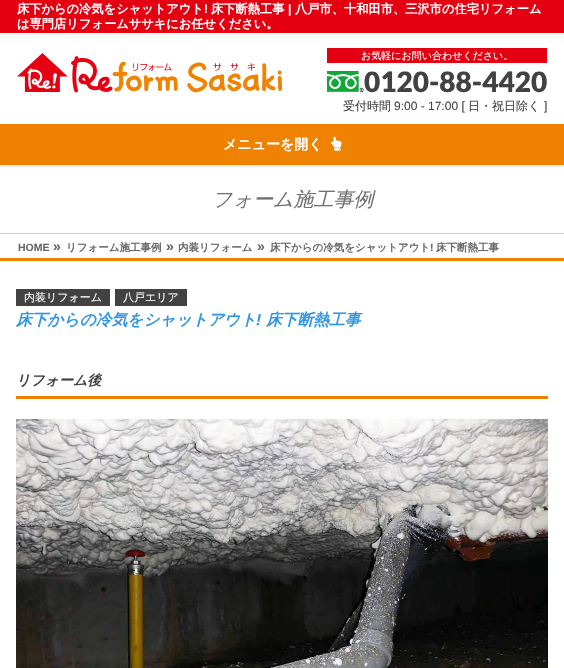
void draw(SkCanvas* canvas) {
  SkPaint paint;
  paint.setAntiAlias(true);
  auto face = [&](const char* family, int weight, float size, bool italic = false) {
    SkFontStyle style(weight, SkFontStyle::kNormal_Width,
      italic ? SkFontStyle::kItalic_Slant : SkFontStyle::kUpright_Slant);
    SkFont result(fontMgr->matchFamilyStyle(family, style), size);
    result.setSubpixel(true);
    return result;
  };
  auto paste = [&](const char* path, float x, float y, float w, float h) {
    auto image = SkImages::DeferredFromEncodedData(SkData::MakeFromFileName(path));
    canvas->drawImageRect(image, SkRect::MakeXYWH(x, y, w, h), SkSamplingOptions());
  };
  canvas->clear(0xffffffff);
  paint.setColor(0xffe50011);
  canvas->drawRect(SkRect::MakeXYWH(0, 0, 564, 33), paint);
  paste("img/1.png", 17, 53, 265, 40);
  canvas->drawRect(SkRect::MakeXYWH(327, 48, 220, 15), paint);
  paste("img/2.png", 327, 71, 37, 21);
  paint.setColor(0x14060001);
  paint.setMaskFilter(SkMaskFilter::MakeBlur(kNormal_SkBlurStyle, 1));
  canvas->drawRect(SkRect::MakeXYWH(0, 126, 564, 41), paint);
  paint.setMaskFilter(nullptr);
  paint.setColor(0xffef8200);
  canvas->drawRect(SkRect::MakeXYWH(0, 124, 564, 41), paint);
  paste("img/3.png", 331, 136, 11, 15);
  {
    const struct { float x, y, w, h; SkColor color; } items[] = {
      {0, 233, 564, 1, 0xffcccccc},
      {0, 258, 564, 3, 0xffef8200},
      {16, 289, 94, 17, 0xff424242},
      {115, 289, 72, 17, 0xff424242},
      {16, 396, 532, 3, 0xffef8200},
    };
    for (auto [x, y, w, h, color] : items) {
      paint.setColor(color);
      canvas->drawRect(SkRect::MakeXYWH(x, y, w, h), paint);
    }
  }
  paste("img/4.png", 16, 419, 532, 249);
  auto f0 = face("WenQuanYi Zen Hei", 700, 12.25f);
  paint.setColor(0xffffffff);
  canvas->drawString("床下からの冷気をシャットアウト", 17, 13, f0, paint);
  auto f1 = face("Liberation Sans", 700, 12.25f);
  canvas->drawString("!", 204, 13, f1, paint);
  canvas->drawString("床下断熱工事", 211, 13, f0, paint);
  canvas->drawString("|", 288, 13, f1, paint);
  canvas->drawString("八戸市、十和田市、三沢市の住宅リフォーム", 295, 13, f0, paint);
  canvas->drawString("は専門店リフォームササキにお任せください。", 17, 28, f0, paint);
  auto f2 = face("WenQuanYi Zen Hei", 500, 10);
  canvas->drawString("お気軽にお問い合わせください。", 361, 59, f2, paint);
  auto f3 = face("Lato", 900, 28);
  paint.setColor(0xff424242);
  canvas->drawString("0120-88-4420", 364, 92, f3, paint);
  auto f4 = face("WenQuanYi Zen Hei", 500, 12);
  canvas->drawString("受付時間", 343, 110, f4, paint);
  auto f5 = face("Liberation Sans", 400, 12);
  canvas->drawString("9:00 - 17:00 [", 394, 110, f5, paint);
  canvas->drawString("日・祝日除く", 468, 110, f4, paint);
  canvas->drawString("]", 544, 110, f5, paint);
  auto f6 = face("WenQuanYi Zen Hei", 700, 14);
  paint.setColor(0xffffffff);
  canvas->drawString("メニューを開く", 223, 149, f6, paint);
  auto f7 = face("Noto Sans", 400, 20, true);
  paint.setColor(0xffef8200);
  canvas->drawString("リ", 191, 206, f7, paint);
  auto f8 = face("WenQuanYi Zen Hei", 500, 20, true);
  paint.setColor(0xff727171);
  canvas->drawString("フォーム施工事例", 212, 206, f8, paint);
  auto f9 = face("Liberation Sans", 700, 10.5f);
  paint.setColor(0xff636663);
  canvas->drawString("HOME", 18, 251, f9, paint);
  auto f10 = face("Liberation Sans", 700, 14);
  canvas->drawString("»", 53, 251, f10, paint);
  auto f11 = face("WenQuanYi Zen Hei", 700, 10.5f);
  canvas->drawString("リフォーム施工事例", 66, 251, f11, paint);
  canvas->drawString("»", 166, 251, f10, paint);
  canvas->drawString("内装リフォーム", 178, 251, f11, paint);
  canvas->drawString("»", 257, 251, f10, paint);
  canvas->drawString("床下からの冷気をシャットアウト", 270, 251, f11, paint);
  canvas->drawString("!", 430, 251, f9, paint);
  canvas->drawString("床下断熱工事", 436, 251, f11, paint);
  auto f12 = face("WenQuanYi Zen Hei", 500, 11);
  paint.setColor(0xffffffff);
  canvas->drawString("内装リフォーム", 24, 301, f12, paint);
  canvas->drawString("八戸エリア", 123, 301, f12, paint);
  auto f13 = face("WenQuanYi Zen Hei", 700, 15.75f, true);
  paint.setColor(0xff3096e2);
  canvas->drawString("床下からの冷気をシャットアウト", 16, 325, f13, paint);
  auto f14 = face("Liberation Sans", 700, 15.75f, true);
  canvas->drawString("!", 256, 325, f14, paint);
  canvas->drawString("床下断熱工事", 266, 325, f13, paint);
  auto f15 = face("WenQuanYi Zen Hei", 700, 14, true);
  paint.setColor(0xff424242);
  canvas->drawString("リフォーム後", 16, 385, f15, paint);
}
